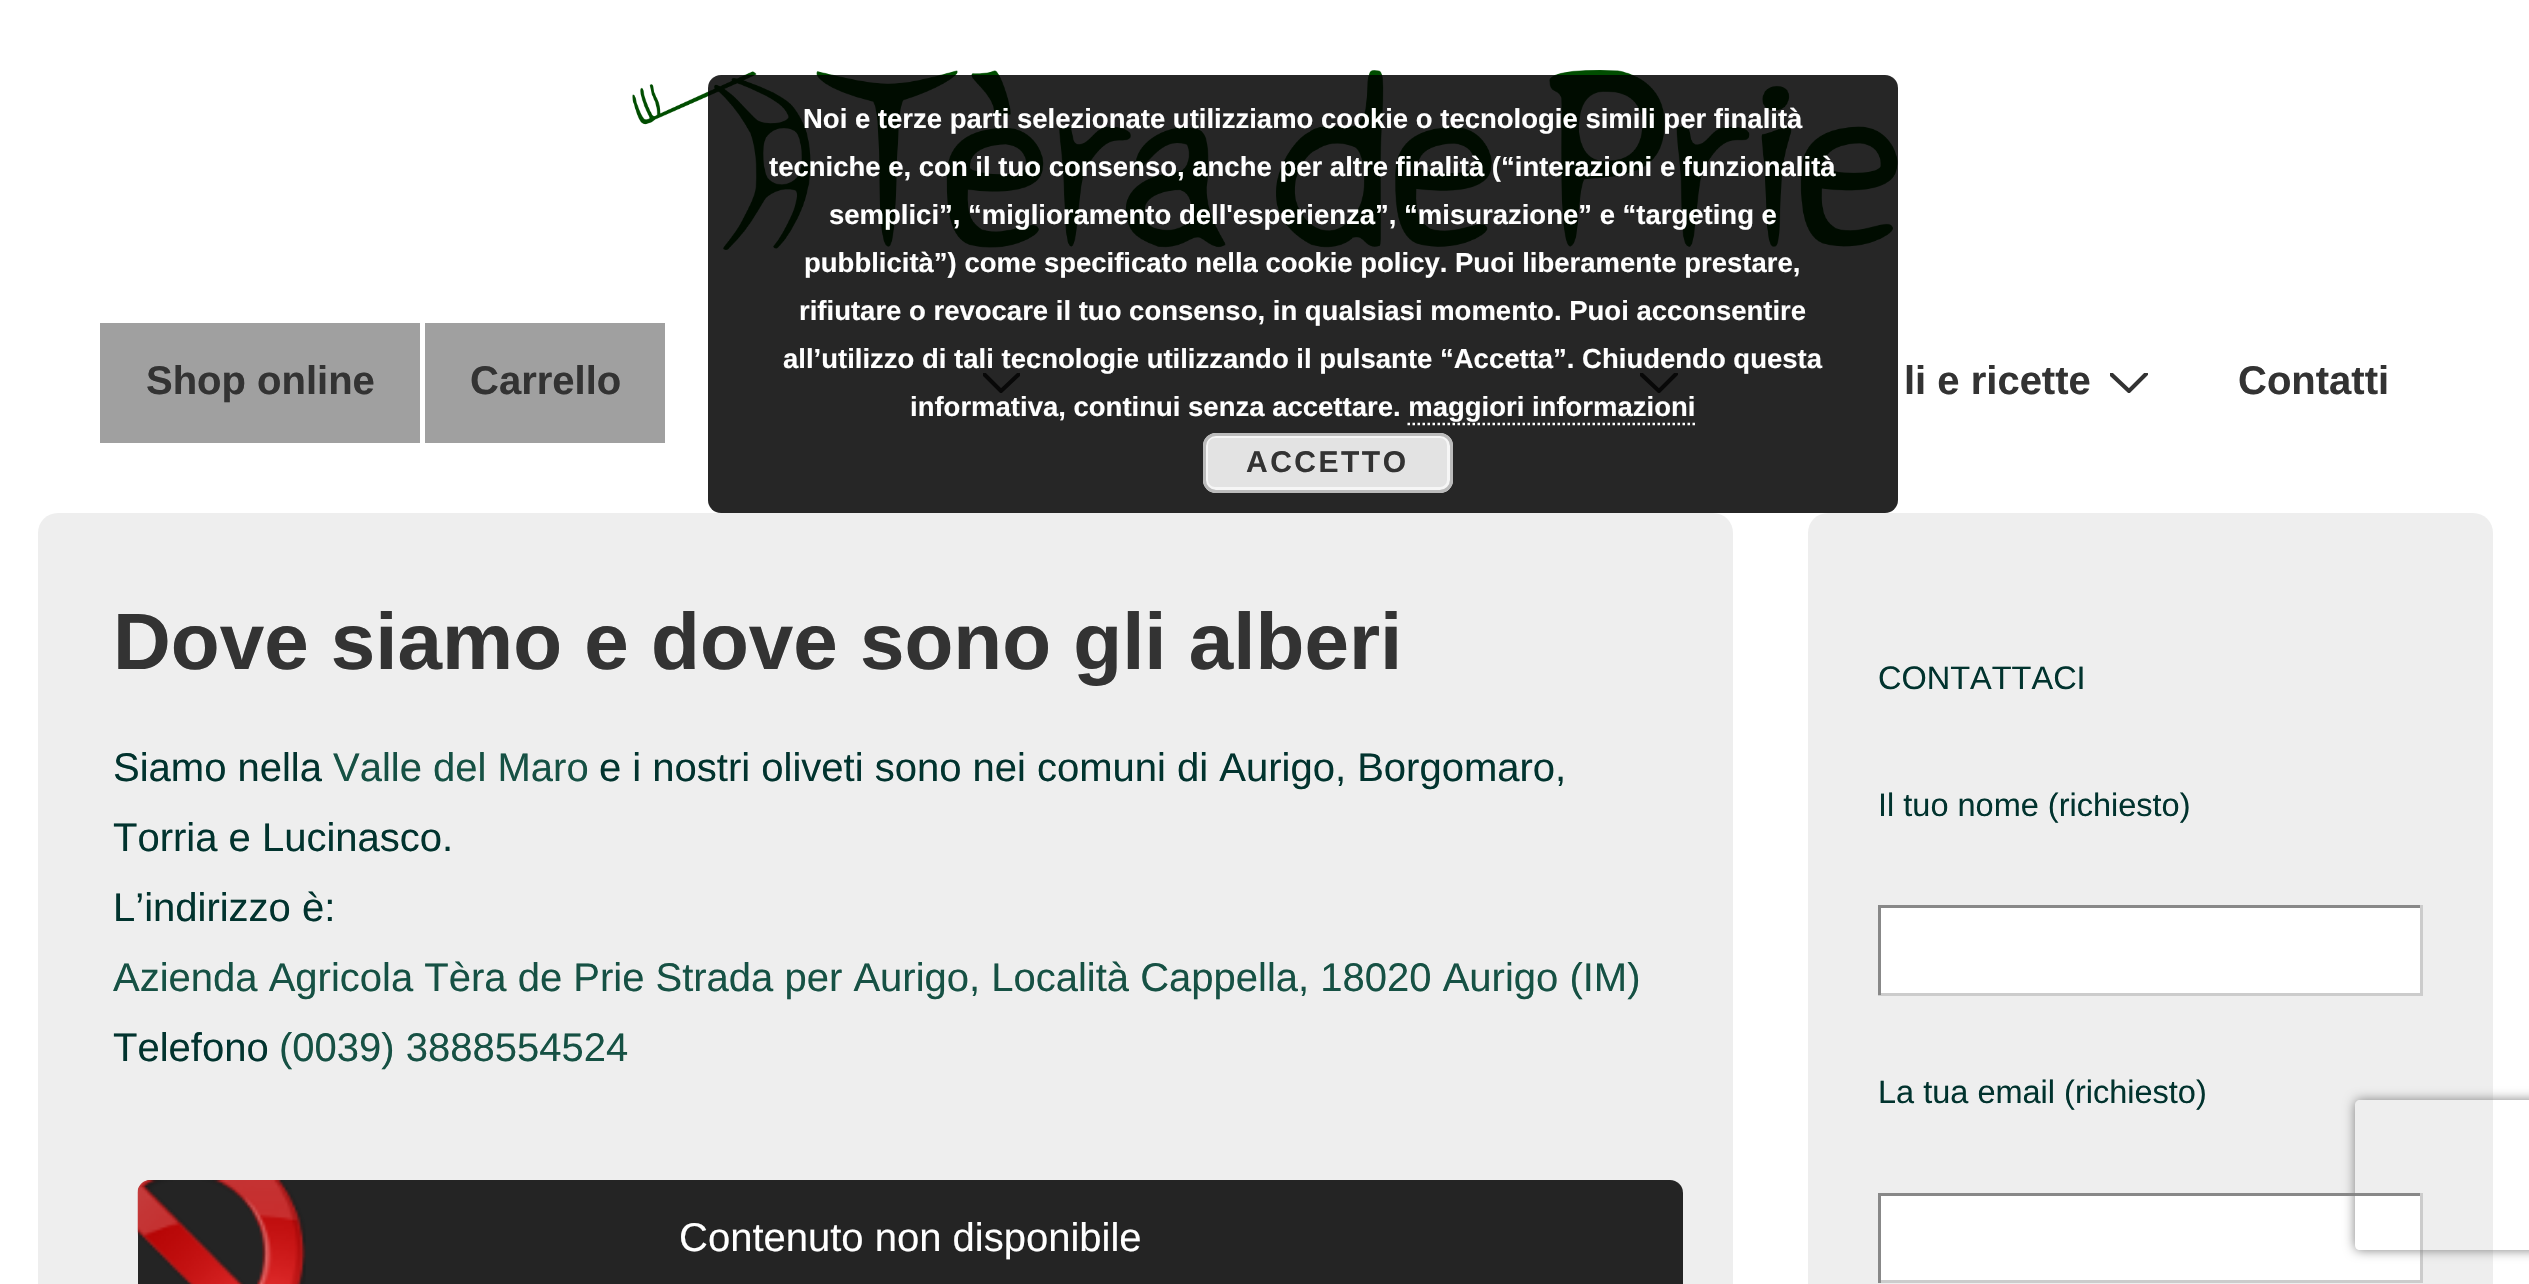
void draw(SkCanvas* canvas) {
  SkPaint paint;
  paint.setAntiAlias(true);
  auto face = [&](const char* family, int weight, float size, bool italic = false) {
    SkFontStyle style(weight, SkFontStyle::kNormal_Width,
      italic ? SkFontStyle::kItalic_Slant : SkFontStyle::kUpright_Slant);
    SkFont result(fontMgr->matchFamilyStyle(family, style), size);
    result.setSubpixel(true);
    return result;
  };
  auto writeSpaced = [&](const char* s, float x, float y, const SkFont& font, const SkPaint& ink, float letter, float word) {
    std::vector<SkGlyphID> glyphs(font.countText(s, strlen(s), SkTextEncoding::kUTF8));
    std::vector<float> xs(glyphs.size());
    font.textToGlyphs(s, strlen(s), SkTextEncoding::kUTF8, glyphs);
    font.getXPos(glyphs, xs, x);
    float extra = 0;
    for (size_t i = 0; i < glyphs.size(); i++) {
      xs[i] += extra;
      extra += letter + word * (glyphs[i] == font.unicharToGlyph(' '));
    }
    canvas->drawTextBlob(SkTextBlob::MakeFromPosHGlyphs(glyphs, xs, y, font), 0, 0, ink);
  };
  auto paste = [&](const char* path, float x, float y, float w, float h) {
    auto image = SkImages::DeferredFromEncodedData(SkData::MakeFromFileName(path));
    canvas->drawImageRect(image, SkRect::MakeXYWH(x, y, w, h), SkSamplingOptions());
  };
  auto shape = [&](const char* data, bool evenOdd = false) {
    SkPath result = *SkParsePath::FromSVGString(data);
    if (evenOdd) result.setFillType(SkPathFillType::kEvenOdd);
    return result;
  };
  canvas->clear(0xffffffff);
  paste("img/1.png", 632, 70, 1266, 180);
  canvas->save();
  canvas->clipRect(SkRect::MakeXYWH(983, 373, 37, 20));
  paint.setStroke(true);
  paint.setStrokeWidth(4.1f);
  paint.setStrokeCap(SkPaint::kRound_Cap);
  paint.setColor(0xff333333);
  canvas->drawPath(shape("M984 374L1001 391L1019 374"), paint);
  canvas->restore();
  canvas->save();
  canvas->clipRect(SkRect::MakeXYWH(1640, 373, 38, 20));
  canvas->drawPath(shape("M1641 374L1659 391L1676 374"), paint);
  canvas->restore();
  paint.setStroke(false);
  paint.setColor(0xd9000000);
  canvas->drawRoundRect(SkRect::MakeXYWH(708, 75, 1190, 438), 13, 13, paint);
  paint.setStroke(true);
  paint.setStrokeWidth(2.5f);
  paint.setStrokeCap(SkPaint::kButt_Cap);
  paint.setColor(0xffffffff);
  paint.setPathEffect(SkDashPathEffect::Make({{2.5f, 2.5f}}, 0));
  canvas->drawPath(shape("M1407.5 424H1695"), paint);
  paint.setPathEffect(nullptr);
  paint.setStroke(false);
  paint.setColor(0xffe3e3e3);
  canvas->drawRoundRect(SkRect::MakeXYWH(1203, 433, 250, 60), 13, 13, paint);
  paint.setStroke(true);
  paint.setStrokeWidth(3);
  paint.setColor(0xfff6f6f6);
  canvas->drawRoundRect(SkRect::MakeXYWH(1206.5f, 436.5f, 242, 52), 8.5f, 8.5f, paint);
  paint.setColor(0xffbbbbbb);
  canvas->drawRoundRect(SkRect::MakeXYWH(1204.5f, 434.5f, 247, 57), 11.5f, 11.5f, paint);
  paint.setStroke(false);
  paint.setColor(0xffa0a0a0);
  canvas->drawRect(SkRect::MakeXYWH(100, 323, 320, 120), paint);
  canvas->drawRect(SkRect::MakeXYWH(425, 323, 240, 120), paint);
  canvas->save();
  canvas->clipRect(SkRect::MakeXYWH(2110, 373, 38, 20));
  paint.setStroke(true);
  paint.setStrokeWidth(4.1f);
  paint.setStrokeCap(SkPaint::kRound_Cap);
  paint.setColor(0xff333333);
  canvas->drawPath(shape("M2111 374L2129 391L2146 374"), paint);
  canvas->restore();
  paint.setStroke(false);
  paint.setColor(0xffeeeeee);
  canvas->drawRoundRect(SkRect::MakeXYWH(38, 513, 1695, 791), 20, 20, paint);
  paint.setColor(0xff242424);
  canvas->drawRoundRect(SkRect::MakeXYWH(138, 1180, 1545, 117), 13, 13, paint);
  paste("img/2.png", 137, 1180, 169, 104);
  paint.setColor(0xffeeeeee);
  canvas->drawRoundRect(SkRect::MakeXYWH(1808, 513, 685, 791), 20, 20, paint);
  {
    const struct { float x, y, w, h; SkColor color; } items[] = {
      {1881, 908, 539, 85, 0xffffffff},
      {1878, 905, 545, 3, 0xff888888},
      {2420, 905, 3, 90, 0xffcccccc},
      {1878, 993, 545, 3, 0xffcccccc},
      {1878, 905, 3, 90, 0xff888888},
      {1881, 1196, 539, 84, 0xffffffff},
      {1878, 1193, 545, 3, 0xff888888},
      {2420, 1193, 3, 90, 0xffcccccc},
      {1878, 1280, 545, 3, 0xffcccccc},
      {1878, 1193, 3, 90, 0xff888888},
    };
    for (auto [x, y, w, h, color] : items) {
      paint.setColor(color);
      canvas->drawRect(SkRect::MakeXYWH(x, y, w, h), paint);
    }
  }
  canvas->save();
  canvas->clipPath(shape("M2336 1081H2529V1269H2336ZM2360 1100H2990C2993 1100 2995 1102 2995 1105V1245C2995 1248 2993 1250 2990 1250H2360C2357 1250 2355 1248 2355 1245V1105C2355 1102 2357 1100 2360 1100Z", true), true);
  paint.setColor(0xff808080);
  paint.setMaskFilter(SkMaskFilter::MakeBlur(kNormal_SkBlurStyle, 6));
  canvas->drawRoundRect(SkRect::MakeXYWH(2355, 1100, 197, 150), 5, 5, paint);
  paint.setMaskFilter(nullptr);
  canvas->restore();
  auto f0 = face("Liberation Sans", 700, 27.5f);
  paint.setColor(0xffffffff);
  {
    const struct { const char* s; float x, y; } items[] = {
      {"Noi e terze parti selezionate utilizziamo cookie o tecnologie simili per finalità", 803, 128},
      {"tecniche e, con il tuo consenso, anche per altre finalità (“interazioni e funzionalità", 769, 176},
      {"semplici”, “miglioramento dell'esperienza”, “misurazione” e “targeting e", 829, 224},
      {"pubblicità”) come specificato nella cookie policy. Puoi liberamente prestare,", 804, 272},
      {"rifiutare o revocare il tuo consenso, in qualsiasi momento. Puoi acconsentire", 799, 320},
      {"all’utilizzo di tali tecnologie utilizzando il pulsante “Accetta”. Chiudendo questa", 783, 368},
      {"informativa, continui senza accettare. maggiori informazioni", 910, 416},
    };
    for (auto [s, x, y] : items) {
      canvas->drawString(s, x, y, f0, paint);
    }
  }
  auto f1 = face("Liberation Sans", 700, 30);
  paint.setColor(0xff333333);
  writeSpaced("ACCETTO", 1246, 472, f1, paint, 2.5f, 0);
  auto f2 = face("Liberation Sans", 700, 40);
  {
    const struct { const char* s; float x, y; } items[] = {
      {"Shop online", 146, 394},
      {"Carrello", 470, 394},
      {"li e ricette", 1904, 394},
      {"Contatti", 2238, 394},
    };
    for (auto [s, x, y] : items) {
      canvas->drawString(s, x, y, f2, paint);
    }
  }
  auto f3 = face("Liberation Sans", 700, 80);
  canvas->drawString("Dove siamo e dove sono gli alberi", 113, 669, f3, paint);
  auto f4 = face("Liberation Sans", 400, 40);
  paint.setColor(0xff01332e);
  canvas->drawString("Siamo nella", 113, 781, f4, paint);
  paint.setColor(0xff165144);
  canvas->drawString("Valle del Maro", 333, 781, f4, paint);
  paint.setColor(0xff01332e);
  {
    const struct { const char* s; float x, y; } items[] = {
      {"e i nostri oliveti sono nei comuni di Aurigo, Borgomaro,", 599, 781},
      {"Torria e Lucinasco.", 113, 851},
      {"L’indirizzo è:", 113, 921},
    };
    for (auto [s, x, y] : items) {
      canvas->drawString(s, x, y, f4, paint);
    }
  }
  paint.setColor(0xff165144);
  canvas->drawString("Azienda Agricola Tèra de Prie Strada per Aurigo, Località Cappella, 18020 Aurigo (IM)", 113, 991, f4, paint);
  paint.setColor(0xff01332e);
  canvas->drawString("Telefono", 113, 1061, f4, paint);
  paint.setColor(0xff165144);
  canvas->drawString("(0039) 3888554524", 279, 1061, f4, paint);
  paint.setColor(0xffffffff);
  canvas->drawString("Contenuto non disponibile", 679, 1251, f4, paint);
  auto f5 = face("Liberation Sans", 400, 32.5f);
  paint.setColor(0xff01332e);
  {
    const struct { const char* s; float x, y; } items[] = {
      {"CONTATTACI", 1878, 689},
      {"Il tuo nome (richiesto)", 1878, 816},
      {"La tua email (richiesto)", 1878, 1103},
    };
    for (auto [s, x, y] : items) {
      canvas->drawString(s, x, y, f5, paint);
    }
  }
}
